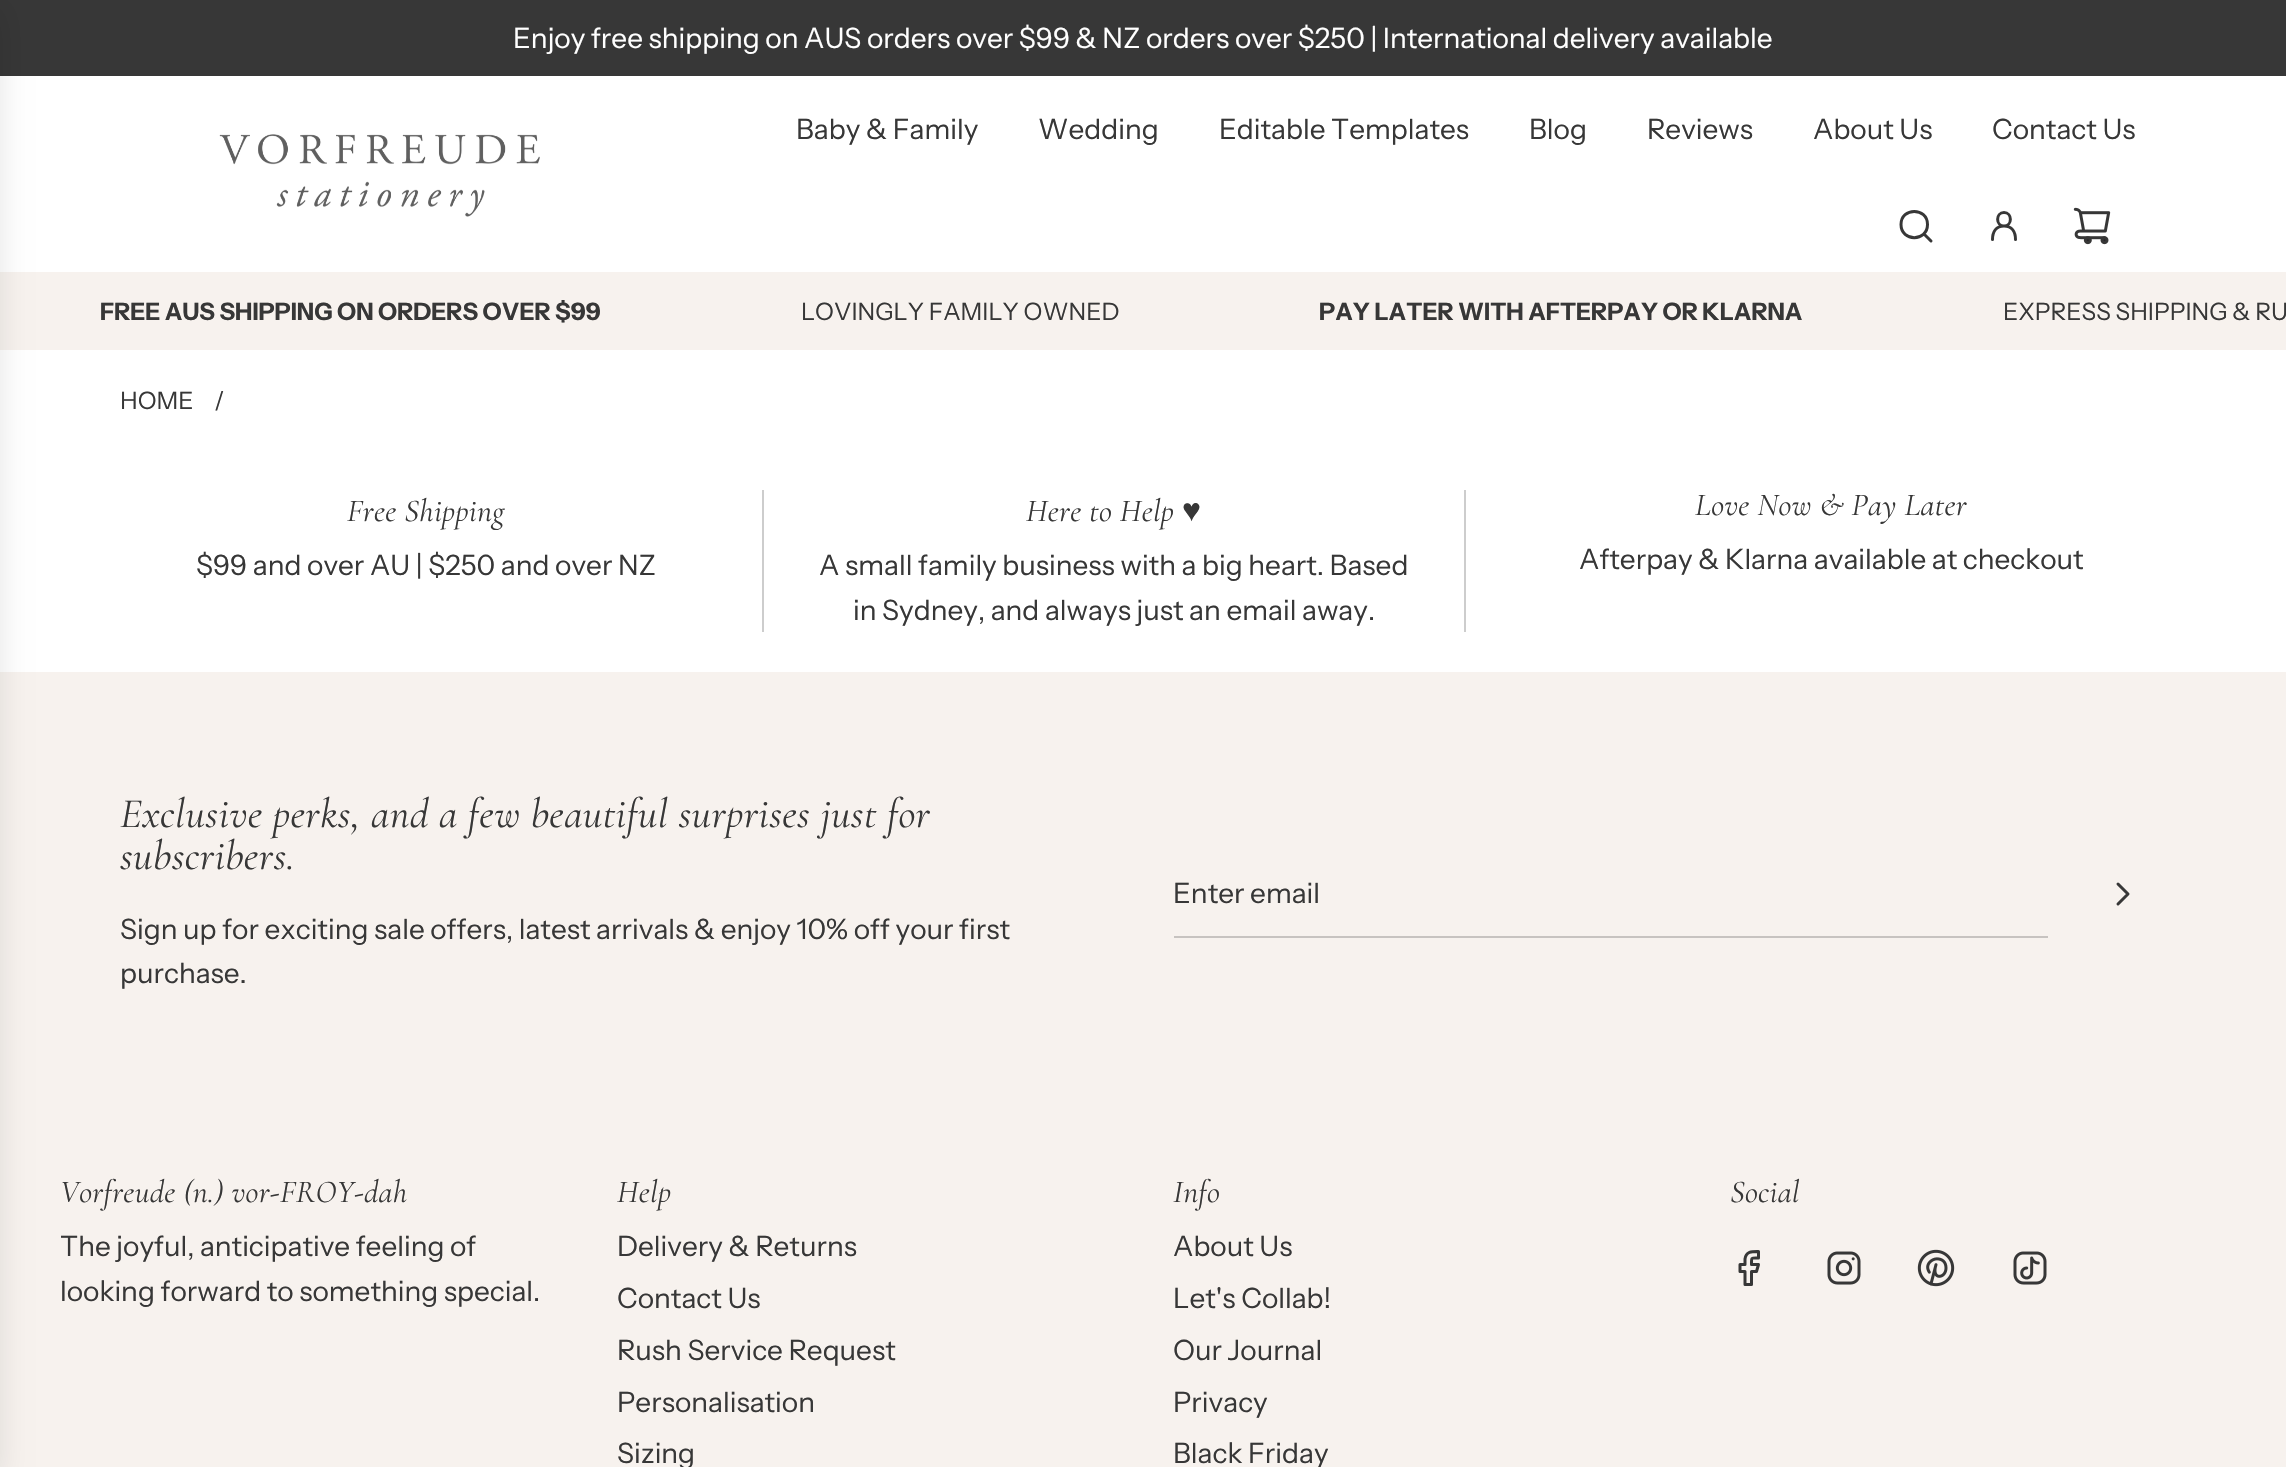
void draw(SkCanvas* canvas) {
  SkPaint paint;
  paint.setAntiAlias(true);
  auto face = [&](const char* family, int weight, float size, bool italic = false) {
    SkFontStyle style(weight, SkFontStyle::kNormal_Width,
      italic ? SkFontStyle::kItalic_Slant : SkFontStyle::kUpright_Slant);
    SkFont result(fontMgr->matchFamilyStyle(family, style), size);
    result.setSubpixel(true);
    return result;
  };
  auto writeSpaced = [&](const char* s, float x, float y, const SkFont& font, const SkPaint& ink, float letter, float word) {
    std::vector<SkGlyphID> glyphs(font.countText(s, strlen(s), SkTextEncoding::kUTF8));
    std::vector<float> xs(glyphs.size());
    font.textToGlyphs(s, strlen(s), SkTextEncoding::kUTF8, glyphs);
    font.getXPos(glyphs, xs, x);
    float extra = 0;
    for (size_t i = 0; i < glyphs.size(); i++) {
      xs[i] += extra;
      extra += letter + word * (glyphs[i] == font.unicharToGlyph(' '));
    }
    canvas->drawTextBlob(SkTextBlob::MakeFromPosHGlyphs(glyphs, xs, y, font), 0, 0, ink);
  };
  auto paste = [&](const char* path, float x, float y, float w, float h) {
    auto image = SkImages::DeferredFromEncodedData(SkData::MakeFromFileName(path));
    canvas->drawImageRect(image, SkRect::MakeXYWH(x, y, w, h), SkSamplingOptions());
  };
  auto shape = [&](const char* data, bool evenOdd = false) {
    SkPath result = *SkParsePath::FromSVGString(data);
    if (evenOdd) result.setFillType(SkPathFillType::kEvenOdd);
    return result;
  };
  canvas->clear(0xffffffff);
  {
    const struct { float x, y, w, h; SkColor color; } items[] = {
      {0, 0, 2286, 76, 0xff373737},
      {0, 272, 2286, 78, 0xfff7f2ee},
      {0, 672, 2286, 795, 0xfff7f2ee},
    };
    for (auto [x, y, w, h, color] : items) {
      paint.setColor(color);
      canvas->drawRect(SkRect::MakeXYWH(x, y, w, h), paint);
    }
  }
  paint.setColor(0x1a000000);
  paint.setMaskFilter(SkMaskFilter::MakeBlur(kNormal_SkBlurStyle, 15));
  canvas->drawRect(SkRect::MakeXYWH(-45, 10, 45, 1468), paint);
  paint.setMaskFilter(nullptr);
  paste("img/1.png", 219, 134, 321, 83);
  paint.setStroke(true);
  paint.setStrokeWidth(3);
  paint.setStrokeCap(SkPaint::kRound_Cap);
  paint.setStrokeJoin(SkPaint::kRound_Join);
  paint.setColor(0xff373737);
  canvas->drawPath(shape("M1924.5 234.5L1931 241M1901 224.5C1901 242 1927.5 242 1927.5 224.5C1927.5 207 1901 207 1901 224.5Z"), paint);
  canvas->drawPath(shape("M1992.5 239.5C1992.5 232 1996 226 2004 226M2004 226C2012 226 2015.5 232 2015.5 239.5M2004 226C2012.5 226 2012.5 212.5 2004 212.5C1995.5 212.5 1995.5 226 2004 226Z"), paint);
  paste("img/2.png", 2073, 207, 38, 38);
  paint.setStroke(false);
  {
    const struct { float x, y, w, h; SkColor color; } items[] = {
      {762, 490, 2, 142, 0xffcdcdcd},
      {1464, 490, 2, 142, 0xffcdcdcd},
      {1174, 936, 874, 2, 0xffc7c3c0},
    };
    for (auto [x, y, w, h, color] : items) {
      paint.setColor(color);
      canvas->drawRect(SkRect::MakeXYWH(x, y, w, h), paint);
    }
  }
  paint.setStroke(true);
  paint.setColor(0xff373737);
  canvas->drawPath(shape("M2118 884L2128 894L2118 904"), paint);
  canvas->drawPath(shape("M1758.5 1251.5C1752.5 1251.5 1746 1251 1745 1259V1264.5H1740V1271.5H1745V1284.5H1751.5V1271.5H1756.5L1758.5 1264.5H1751.5C1751.5 1257 1751 1258 1758.5 1258Z"), paint);
  paste("img/3.png", 1827, 1251, 34, 34);
  paste("img/4.png", 1917, 1249, 38, 38);
  paste("img/5.png", 2013, 1251, 34, 34);
  auto f0 = face("Instrument Sans", 400, 28);
  paint.setStroke(false);
  paint.setColor(0xffffffff);
  canvas->drawString("Enjoy free shipping on AUS orders over $99 & NZ orders over $250 | International delivery available", 513, 48, f0, paint);
  paint.setColor(0xff373737);
  {
    const struct { const char* s; float x, y; } items[] = {
      {"Baby & Family", 796, 139},
      {"Wedding", 1038, 139},
      {"Editable Templates", 1219, 139},
      {"Blog", 1529, 139},
      {"Reviews", 1647, 139},
      {"About Us", 1813, 139},
      {"Contact Us", 1992, 139},
    };
    for (auto [s, x, y] : items) {
      canvas->drawString(s, x, y, f0, paint);
    }
  }
  auto f1 = face("Instrument Sans", 700, 24);
  canvas->drawString("FREE AUS SHIPPING ON ORDERS OVER $99", 100, 320, f1, paint);
  auto f2 = face("Instrument Sans", 400, 24);
  canvas->drawString("LOVINGLY FAMILY OWNED", 801, 320, f2, paint);
  canvas->drawString("PAY LATER WITH AFTERPAY OR KLARNA", 1319, 320, f1, paint);
  {
    const struct { const char* s; float x, y; } items[] = {
      {"EXPRESS SHIPPING & RU", 2003, 320},
      {"HOME", 120, 409},
      {"/", 214, 409},
    };
    for (auto [s, x, y] : items) {
      canvas->drawString(s, x, y, f2, paint);
    }
  }
  auto f3 = face("Cormorant", 400, 32, true);
  writeSpaced("Free Shipping", 347, 521, f3, paint, 0.3f, 0);
  canvas->drawString("$99 and over AU | $250 and over NZ", 196, 575, f0, paint);
  writeSpaced("Here to Help", 1026, 521, f3, paint, 0.3f, 0);
  auto f4 = face("Liberation Serif", 400, 32, true);
  writeSpaced("♥", 1182, 521, f4, paint, 0.3f, 0);
  canvas->drawString("A small family business with a big heart. Based", 819, 575, f0, paint);
  canvas->drawString("in Sydney, and always just an email away.", 853, 620, f0, paint);
  writeSpaced("Love Now & Pay Later", 1695, 515, f3, paint, 0.3f, 0);
  canvas->drawString("Afterpay & Klarna available at checkout", 1579, 569, f0, paint);
  auto f5 = face("Cormorant", 400, 42, true);
  writeSpaced("Exclusive perks, and a few beautiful surprises just for", 120, 827, f5, paint, 0.42f, 0);
  writeSpaced("subscribers.", 120, 869, f5, paint, 0.42f, 0);
  {
    const struct { const char* s; float x, y; } items[] = {
      {"Sign up for exciting sale offers, latest arrivals & enjoy 10% off your first", 120, 939},
      {"purchase.", 120, 983},
      {"Enter email", 1173, 903},
    };
    for (auto [s, x, y] : items) {
      canvas->drawString(s, x, y, f0, paint);
    }
  }
  writeSpaced("Vorfreude (n.) vor-FROY-dah", 60, 1202, f3, paint, 0.3f, 0);
  canvas->drawString("The joyful, anticipative feeling of", 60, 1256, f0, paint);
  canvas->drawString("looking forward to something special.", 60, 1301, f0, paint);
  writeSpaced("Help", 617, 1202, f3, paint, 0.3f, 0);
  {
    const struct { const char* s; float x, y; } items[] = {
      {"Delivery & Returns", 617, 1256},
      {"Contact Us", 617, 1308},
      {"Rush Service Request", 617, 1360},
      {"Personalisation", 617, 1412},
      {"Sizing", 617, 1463},
    };
    for (auto [s, x, y] : items) {
      canvas->drawString(s, x, y, f0, paint);
    }
  }
  writeSpaced("Info", 1173, 1202, f3, paint, 0.3f, 0);
  {
    const struct { const char* s; float x, y; } items[] = {
      {"About Us", 1173, 1256},
      {"Let's Collab!", 1173, 1308},
      {"Our Journal", 1173, 1360},
      {"Privacy", 1173, 1412},
      {"Black Friday", 1173, 1463},
    };
    for (auto [s, x, y] : items) {
      canvas->drawString(s, x, y, f0, paint);
    }
  }
  writeSpaced("Social", 1730, 1202, f3, paint, 0.3f, 0);
}
